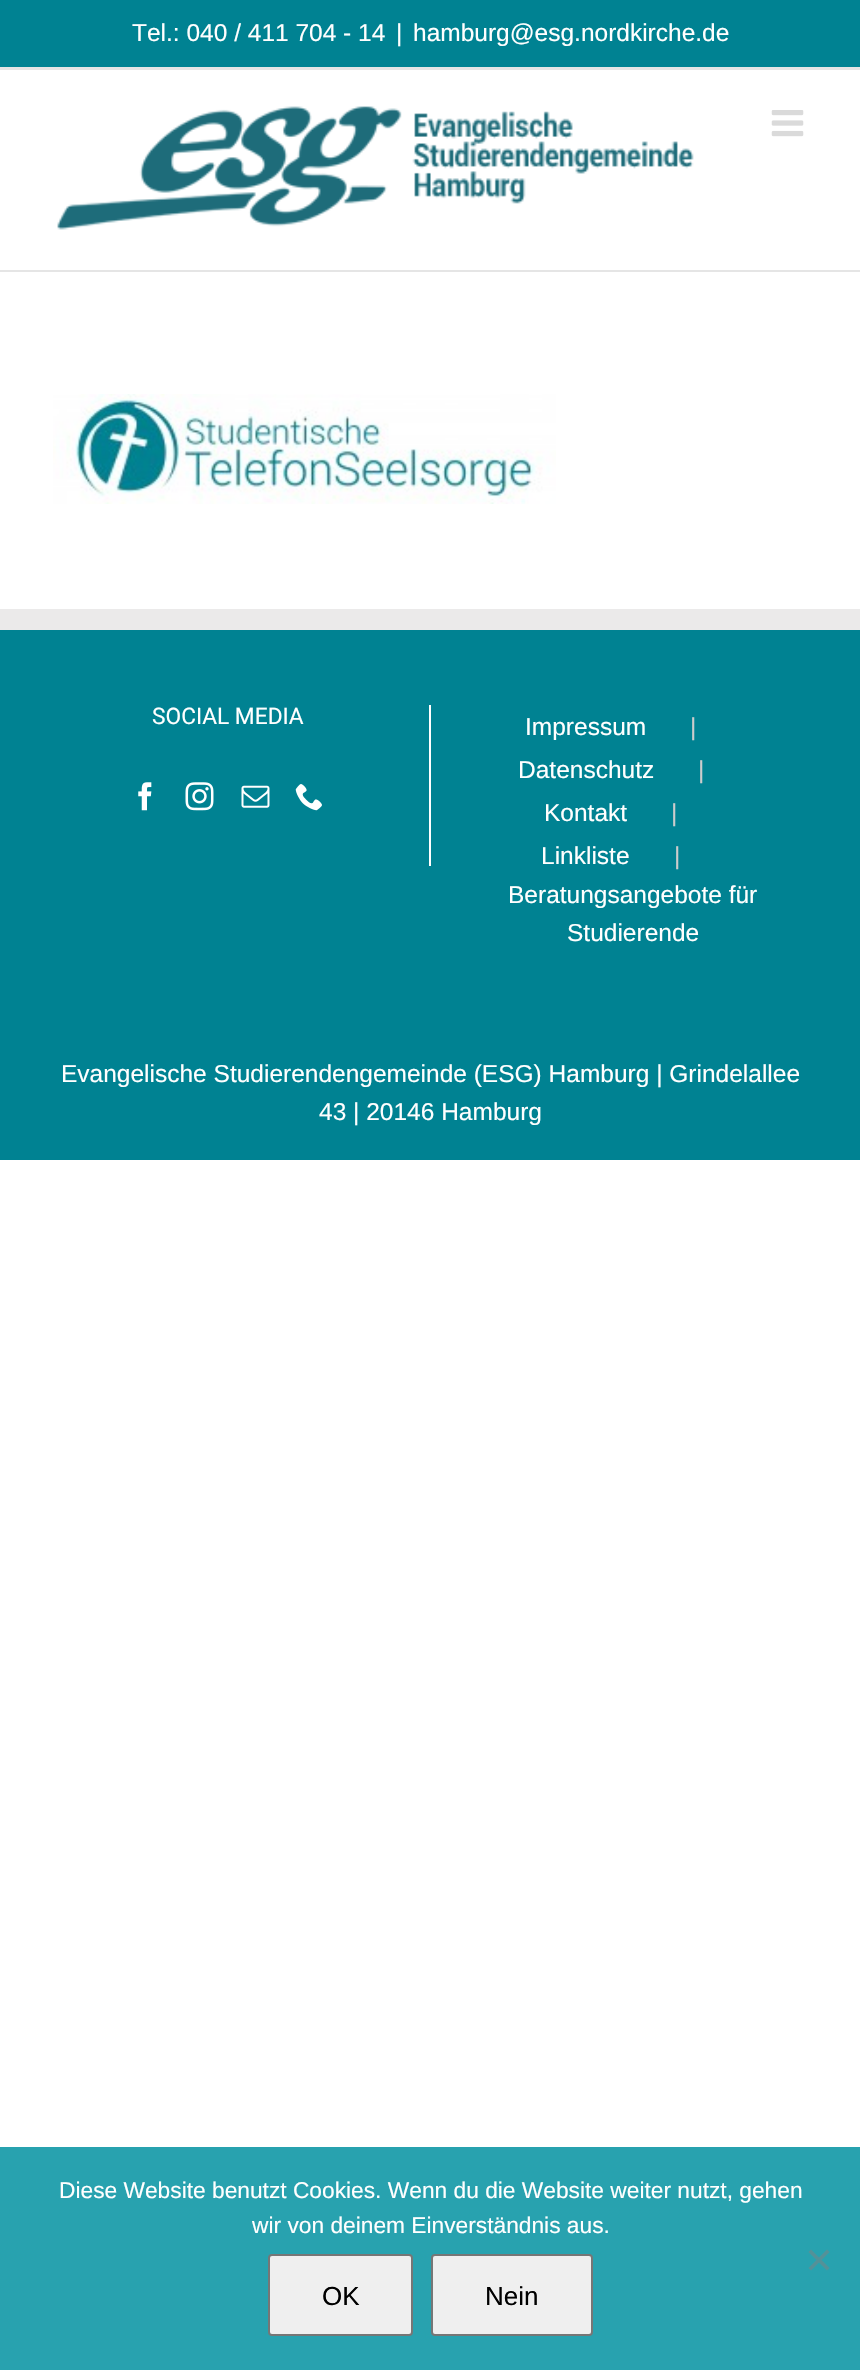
void draw(SkCanvas* canvas) {
  SkPaint paint;
  paint.setAntiAlias(true);
  auto face = [&](const char* family, int weight, float size, bool italic = false) {
    SkFontStyle style(weight, SkFontStyle::kNormal_Width,
      italic ? SkFontStyle::kItalic_Slant : SkFontStyle::kUpright_Slant);
    SkFont result(fontMgr->matchFamilyStyle(family, style), size);
    result.setSubpixel(true);
    return result;
  };
  auto paste = [&](const char* path, float x, float y, float w, float h) {
    auto image = SkImages::DeferredFromEncodedData(SkData::MakeFromFileName(path));
    canvas->drawImageRect(image, SkRect::MakeXYWH(x, y, w, h), SkSamplingOptions());
  };
  auto shape = [&](const char* data, bool evenOdd = false) {
    SkPath result = *SkParsePath::FromSVGString(data);
    if (evenOdd) result.setFillType(SkPathFillType::kEvenOdd);
    return result;
  };
  canvas->clear(0xffffffff);
  {
    const struct { float x, y, w, h; SkColor color; } items[] = {
      {0, 0, 860, 67, 0xff008292},
      {0, 67, 860, 3, 0xffe5e5e5},
      {0, 270, 860, 2, 0xffe5e5e5},
    };
    for (auto [x, y, w, h, color] : items) {
      paint.setColor(color);
      canvas->drawRect(SkRect::MakeXYWH(x, y, w, h), paint);
    }
  }
  paste("img/1.png", 57, 106, 637, 124);
  paste("img/2.png", 771, 110, 33, 27);
  paste("img/3.png", 53, 394, 503, 110);
  {
    const struct { float x, y, w, h; SkColor color; } items[] = {
      {0, 630, 860, 530, 0xff008292},
      {0, 609, 860, 21, 0xffebeaea},
      {429, 705, 2, 161, 0xffffffff},
    };
    for (auto [x, y, w, h, color] : items) {
      paint.setColor(color);
      canvas->drawRect(SkRect::MakeXYWH(x, y, w, h), paint);
    }
  }
  paste("img/4.png", 138, 782, 14, 29);
  paste("img/5.png", 185, 782, 29, 29);
  paste("img/6.png", 241, 785, 29, 23);
  paste("img/7.png", 295, 784, 27, 27);
  paint.setColor(0xff28a2af);
  canvas->drawRect(SkRect::MakeXYWH(0, 2147, 860, 223), paint);
  paint.setColor(0xff549198);
  canvas->drawPath(shape("M827 2249.5L829.5 2252L811 2270.5L808.5 2268Z"), paint);
  canvas->drawPath(shape("M808.5 2252L811 2249.5L829.5 2268L827 2270.5Z"), paint);
  paint.setColor(0xffefefef);
  canvas->drawRoundRect(SkRect::MakeXYWH(269, 2255, 143, 80), 3, 3, paint);
  paint.setStroke(true);
  paint.setStrokeWidth(2);
  paint.setColor(0xff767676);
  canvas->drawRoundRect(SkRect::MakeXYWH(269, 2255, 143, 80), 3, 3, paint);
  paint.setStroke(false);
  paint.setColor(0xffefefef);
  canvas->drawRoundRect(SkRect::MakeXYWH(432, 2255, 160, 80), 3, 3, paint);
  paint.setStroke(true);
  paint.setColor(0xff767676);
  canvas->drawRoundRect(SkRect::MakeXYWH(432, 2255, 160, 80), 3, 3, paint);
  auto f0 = face("Liberation Sans", 400, 24.5f);
  paint.setStroke(false);
  paint.setColor(0xffffffff);
  {
    const struct { const char* s; float x, y; } items[] = {
      {"Tel.: 040 / 411 704 - 14", 132, 41},
      {"|", 396, 41},
      {"hamburg@esg.nordkirche.de", 413, 41},
    };
    for (auto [s, x, y] : items) {
      canvas->drawString(s, x, y, f0, paint);
    }
  }
  auto f1 = face("Roboto", 400, 22.75f);
  canvas->drawString("SOCIAL MEDIA", 152, 724, f1, paint);
  canvas->drawString("Impressum", 525, 735, f0, paint);
  paint.setColor(0xffcccccc);
  canvas->drawString("|", 690, 735, f0, paint);
  paint.setColor(0xffffffff);
  canvas->drawString("Datenschutz", 518, 778, f0, paint);
  paint.setColor(0xffcccccc);
  canvas->drawString("|", 698, 778, f0, paint);
  paint.setColor(0xffffffff);
  canvas->drawString("Kontakt", 544, 821, f0, paint);
  paint.setColor(0xffcccccc);
  canvas->drawString("|", 671, 821, f0, paint);
  paint.setColor(0xffffffff);
  canvas->drawString("Linkliste", 541, 864, f0, paint);
  paint.setColor(0xffcccccc);
  canvas->drawString("|", 674, 864, f0, paint);
  paint.setColor(0xffffffff);
  {
    const struct { const char* s; float x, y; } items[] = {
      {"Beratungsangebote für", 508, 903},
      {"Studierende", 567, 941},
      {"Evangelische Studierendengemeinde (ESG) Hamburg | Grindelallee", 61, 1082},
      {"43 | 20146 Hamburg", 319, 1120},
    };
    for (auto [s, x, y] : items) {
      canvas->drawString(s, x, y, f0, paint);
    }
  }
  auto f2 = face("Liberation Sans", 400, 22.75f);
  canvas->drawString("Diese Website benutzt Cookies. Wenn du die Website weiter nutzt, gehen", 59, 2198, f2, paint);
  canvas->drawString("wir von deinem Einverständnis aus.", 252, 2233, f2, paint);
  auto f3 = face("Liberation Sans", 400, 26);
  paint.setColor(0xff000000);
  canvas->drawString("OK", 322, 2305, f3, paint);
  canvas->drawString("Nein", 485, 2305, f3, paint);
}
